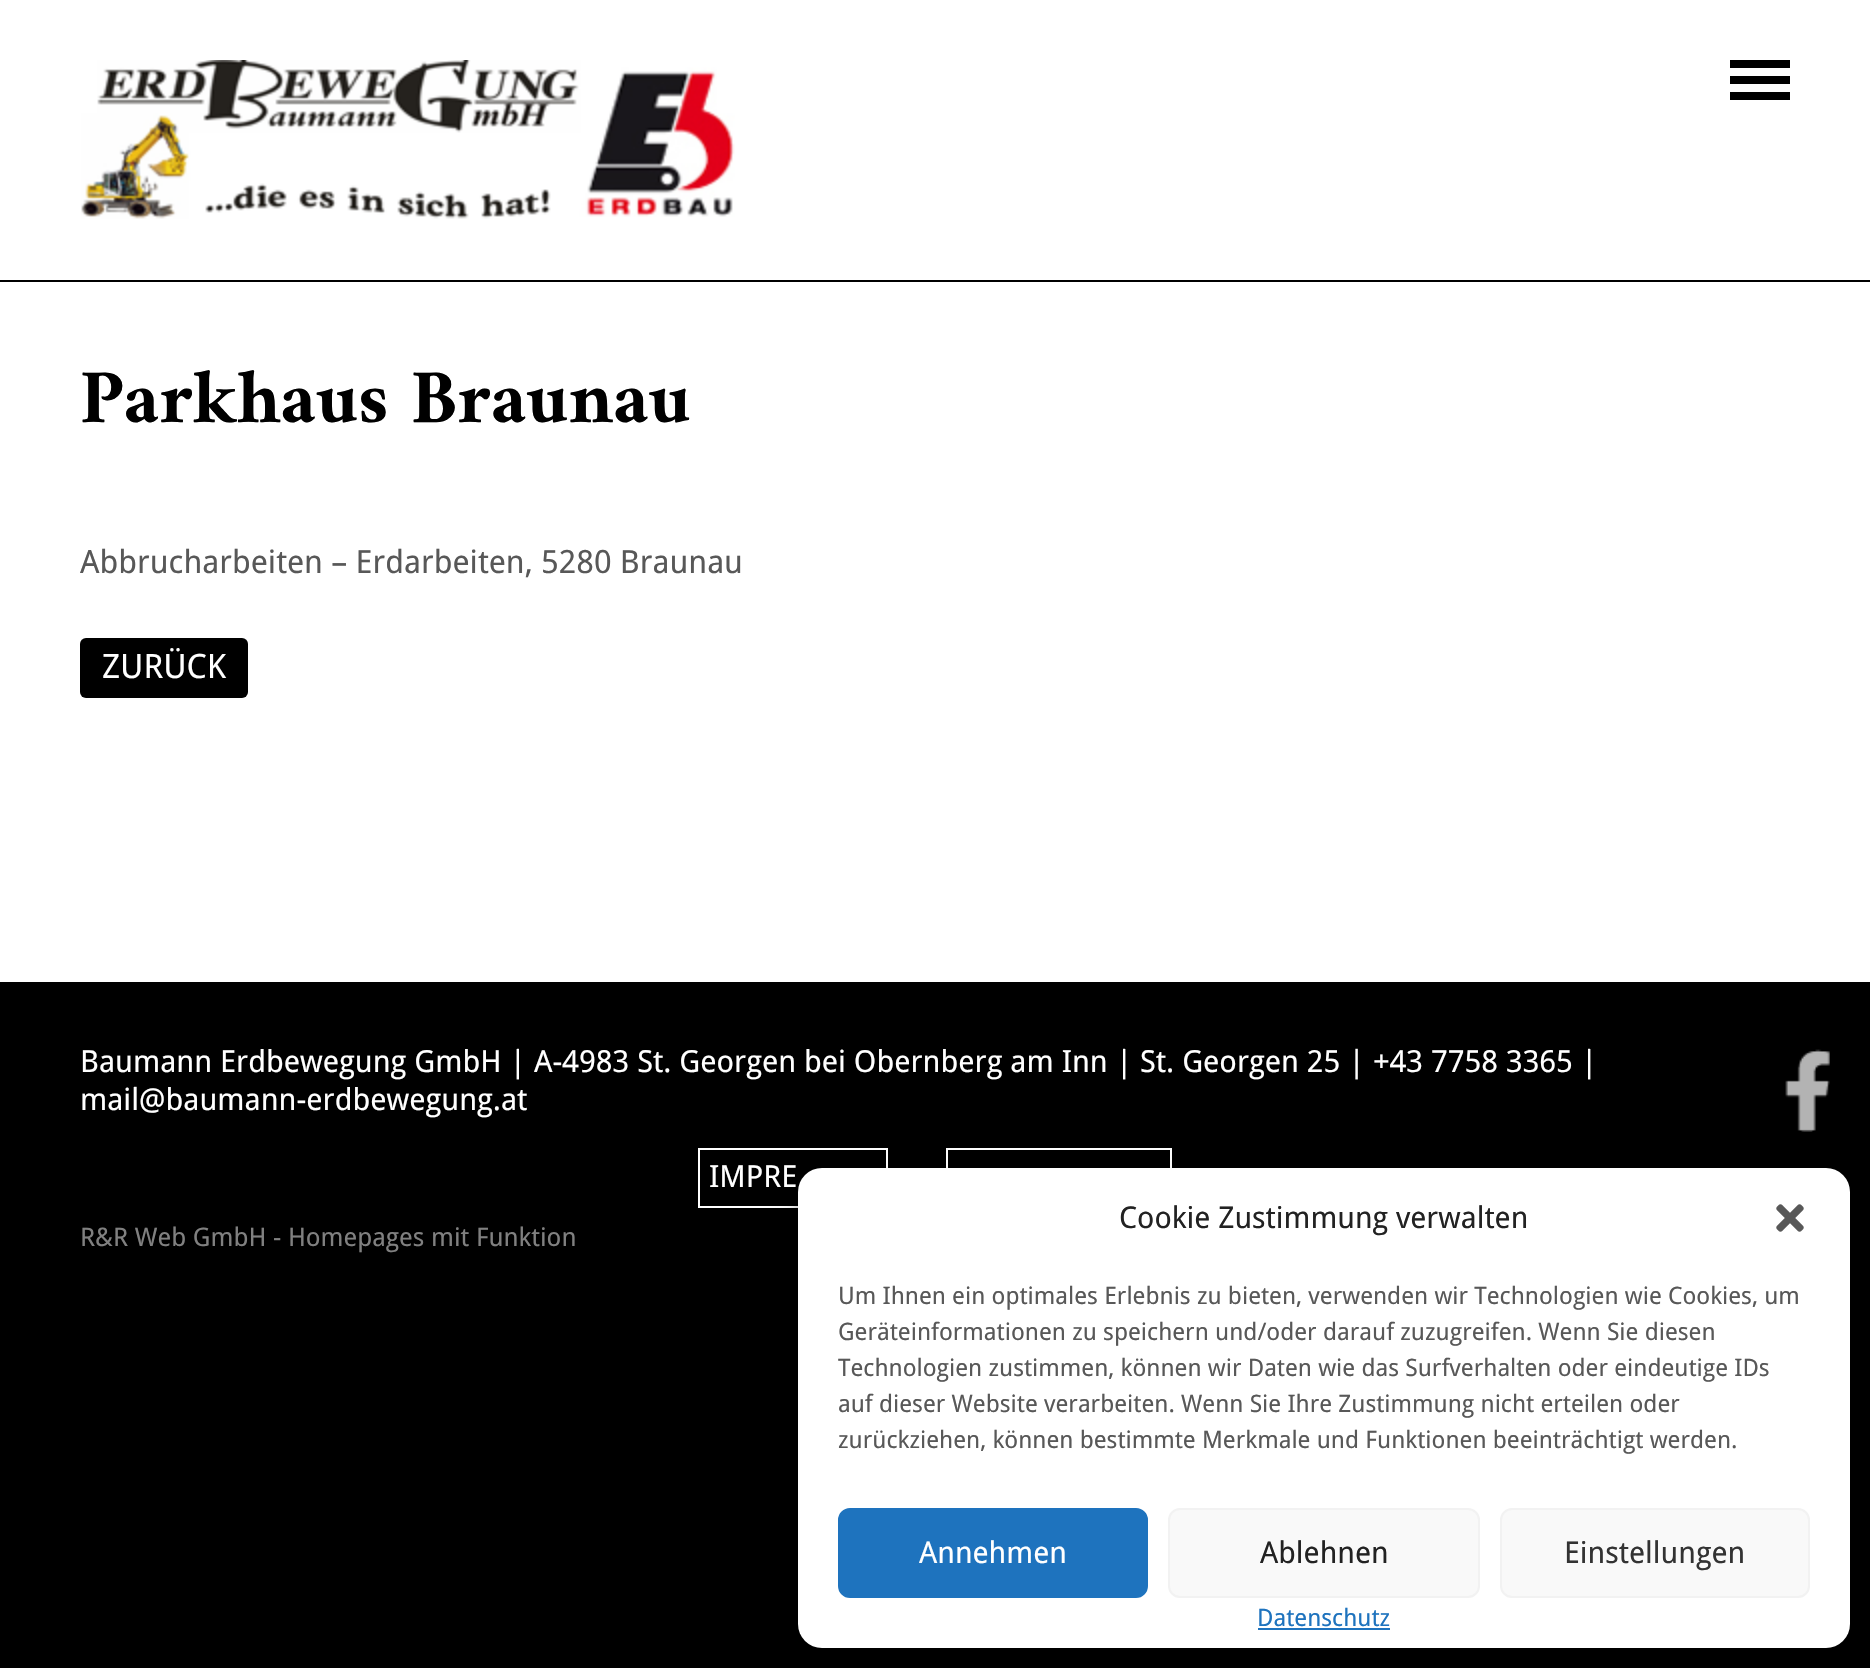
void draw(SkCanvas* canvas) {
  SkPaint paint;
  paint.setAntiAlias(true);
  auto face = [&](const char* family, int weight, float size, bool italic = false) {
    SkFontStyle style(weight, SkFontStyle::kNormal_Width,
      italic ? SkFontStyle::kItalic_Slant : SkFontStyle::kUpright_Slant);
    SkFont result(fontMgr->matchFamilyStyle(family, style), size);
    result.setSubpixel(true);
    return result;
  };
  auto paste = [&](const char* path, float x, float y, float w, float h) {
    auto image = SkImages::DeferredFromEncodedData(SkData::MakeFromFileName(path));
    canvas->drawImageRect(image, SkRect::MakeXYWH(x, y, w, h), SkSamplingOptions());
  };
  canvas->clear(0xff000000);
  paint.setColor(0xffffffff);
  canvas->drawRect(SkRect::MakeXYWH(0, 0, 1870, 280), paint);
  paste("img/1.png", 81, 60, 654, 159);
  {
    const struct { float x, y, w, h; SkColor color; } items[] = {
      {1730, 60, 60, 8, 0xff000000},
      {1730, 92, 60, 8, 0xff000000},
      {1730, 76, 60, 8, 0xff000000},
      {0, 282, 1870, 700, 0xffffffff},
    };
    for (auto [x, y, w, h, color] : items) {
      paint.setColor(color);
      canvas->drawRect(SkRect::MakeXYWH(x, y, w, h), paint);
    }
  }
  paint.setColor(0xff000000);
  canvas->drawRoundRect(SkRect::MakeXYWH(80, 638, 168, 60), 6, 6, paint);
  paint.setStroke(true);
  paint.setStrokeWidth(2);
  paint.setColor(0xffffffff);
  canvas->drawRect(SkRect::MakeXYWH(699, 1149, 188, 58), paint);
  canvas->drawRect(SkRect::MakeXYWH(947, 1149, 224, 58), paint);
  paste("img/2.png", 1785, 1049, 45, 83);
  paint.setStroke(false);
  paint.setColor(0x3b000000);
  paint.setMaskFilter(SkMaskFilter::MakeBlur(kNormal_SkBlurStyle, 6));
  canvas->drawRoundRect(SkRect::MakeXYWH(798, 1180, 1052, 480), 24, 24, paint);
  paint.setMaskFilter(nullptr);
  paint.setColor(0x30000000);
  paint.setMaskFilter(SkMaskFilter::MakeBlur(kNormal_SkBlurStyle, 20));
  canvas->drawRoundRect(SkRect::MakeXYWH(798, 1188, 1052, 480), 24, 24, paint);
  paint.setMaskFilter(nullptr);
  paint.setColor(0xffffffff);
  canvas->drawRoundRect(SkRect::MakeXYWH(798, 1168, 1052, 480), 24, 24, paint);
  paste("img/3.png", 1776, 1204, 28, 28);
  paint.setColor(0xff1e73be);
  canvas->drawRoundRect(SkRect::MakeXYWH(839, 1509, 308, 88), 11, 11, paint);
  paint.setStroke(true);
  canvas->drawRoundRect(SkRect::MakeXYWH(839, 1509, 308, 88), 11, 11, paint);
  paint.setStroke(false);
  paint.setColor(0xfff9f9f9);
  canvas->drawRoundRect(SkRect::MakeXYWH(1169, 1509, 310, 88), 11, 11, paint);
  paint.setStroke(true);
  paint.setColor(0xfff2f2f2);
  canvas->drawRoundRect(SkRect::MakeXYWH(1169, 1509, 310, 88), 11, 11, paint);
  paint.setStroke(false);
  paint.setColor(0xfff9f9f9);
  canvas->drawRoundRect(SkRect::MakeXYWH(1501, 1509, 308, 88), 11, 11, paint);
  paint.setStroke(true);
  paint.setColor(0xfff2f2f2);
  canvas->drawRoundRect(SkRect::MakeXYWH(1501, 1509, 308, 88), 11, 11, paint);
  paint.setStroke(false);
  paint.setColor(0xff1e73be);
  canvas->drawRect(SkRect::MakeXYWH(1258, 1628, 132, 2), paint);
  auto f0 = face("Amiri", 700, 76.75f);
  paint.setColor(0xff000000);
  canvas->drawString("Parkhaus Braunau", 80, 422, f0, paint);
  auto f1 = face("Droid Sans", 400, 32);
  paint.setColor(0xff585858);
  canvas->drawString("Abbrucharbeiten – Erdarbeiten, 5280 Braunau", 80, 573, f1, paint);
  auto f2 = face("Droid Sans", 400, 33.5f);
  paint.setColor(0xffffffff);
  canvas->drawString("ZURÜCK", 102, 678, f2, paint);
  auto f3 = face("Droid Sans", 400, 30.4f);
  {
    const struct { const char* s; float x, y; } items[] = {
      {"Baumann Erdbewegung GmbH |", 80, 1072},
      {"A-4983 St. Georgen bei Obernberg am Inn |", 534, 1072},
      {"St. Georgen 25 | +43 7758 3365 |", 1140, 1072},
      {"mail@baumann-erdbewegung.at", 80, 1110},
      {"IMPRE", 709, 1187},
    };
    for (auto [s, x, y] : items) {
      canvas->drawString(s, x, y, f3, paint);
    }
  }
  auto f4 = face("Droid Sans", 400, 25.6f);
  paint.setColor(0xff808080);
  canvas->drawString("R&R Web GmbH - Homepages mit Funktion", 80, 1246, f4, paint);
  auto f5 = face("Droid Sans", 400, 30);
  paint.setColor(0xff222222);
  canvas->drawString("Cookie Zustimmung verwalten", 1119, 1228, f5, paint);
  auto f6 = face("Droid Sans", 400, 24);
  paint.setColor(0xff585858);
  {
    const struct { const char* s; float x, y; } items[] = {
      {"Um Ihnen ein optimales Erlebnis zu bieten, verwenden wir Technologien wie Cookies, um", 838, 1304},
      {"Geräteinformationen zu speichern und/oder darauf zuzugreifen. Wenn Sie diesen", 838, 1340},
      {"Technologien zustimmen, können wir Daten wie das Surfverhalten oder eindeutige IDs", 838, 1376},
      {"auf dieser Website verarbeiten. Wenn Sie Ihre Zustimmung nicht erteilen oder", 838, 1412},
      {"zurückziehen, können bestimmte Merkmale und Funktionen beeinträchtigt werden.", 838, 1448},
    };
    for (auto [s, x, y] : items) {
      canvas->drawString(s, x, y, f6, paint);
    }
  }
  paint.setColor(0xffffffff);
  canvas->drawString("Annehmen", 919, 1563, f5, paint);
  paint.setColor(0xff222222);
  canvas->drawString("Ablehnen", 1260, 1563, f5, paint);
  paint.setColor(0xff333333);
  canvas->drawString("Einstellungen", 1564, 1563, f5, paint);
  paint.setColor(0xff1e73be);
  canvas->drawString("Datenschutz", 1257, 1626, f6, paint);
}
